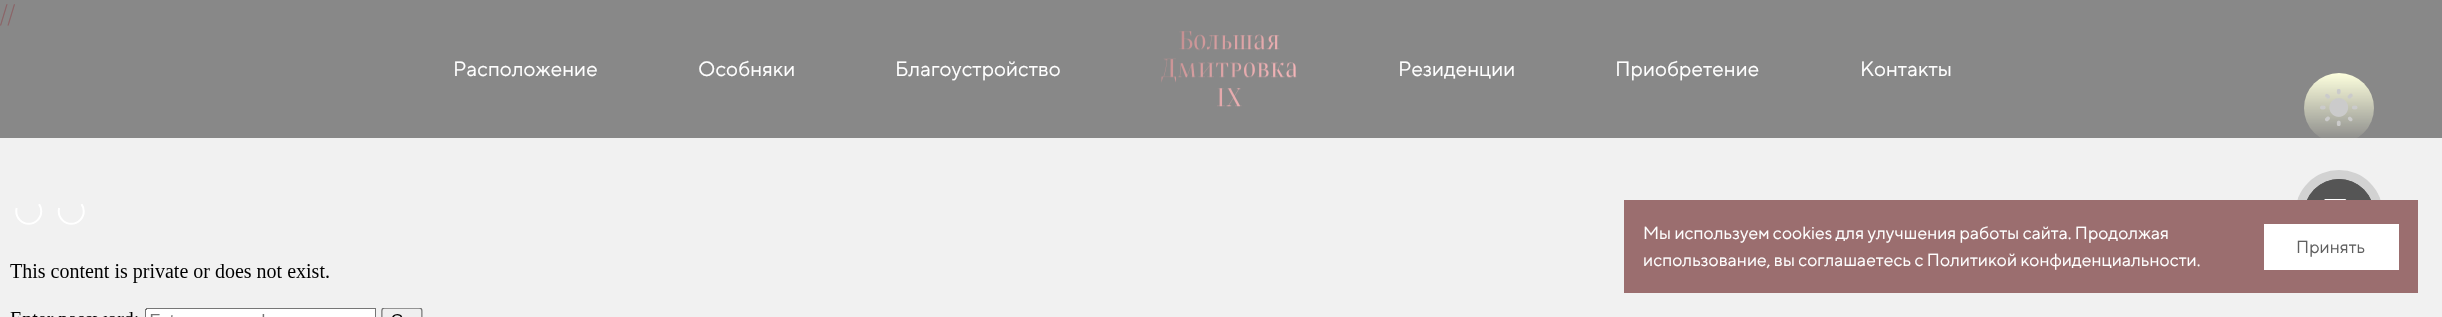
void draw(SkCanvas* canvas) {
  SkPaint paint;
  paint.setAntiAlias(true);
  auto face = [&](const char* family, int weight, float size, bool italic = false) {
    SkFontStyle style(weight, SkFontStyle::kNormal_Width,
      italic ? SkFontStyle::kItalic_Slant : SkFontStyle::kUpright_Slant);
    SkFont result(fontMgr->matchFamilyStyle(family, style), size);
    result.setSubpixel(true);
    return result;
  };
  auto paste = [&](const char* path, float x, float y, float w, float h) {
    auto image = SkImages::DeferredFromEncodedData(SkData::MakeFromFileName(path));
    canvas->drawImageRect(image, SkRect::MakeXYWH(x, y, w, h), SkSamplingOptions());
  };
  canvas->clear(0xfff1f1f1);
  paint.setColor(0xff888888);
  canvas->drawRect(SkRect::MakeXYWH(0, 0, 2442, 138), paint);
  paste("img/1.png", 1161, 31, 136, 76);
  paste("img/2.png", 10, 204, 413, 113);
  paint.setColor(0xffd2d2d2);
  canvas->drawCircle(2339, 214, 44, paint);
  paint.setStroke(true);
  paint.setStrokeWidth(1);
  paint.setColor(0xff555555);
  canvas->drawCircle(2339, 214, 34.5f, paint);
  paint.setStroke(false);
  canvas->drawCircle(2339, 214, 35, paint);
  paint.setColor(0xff9b6e6f);
  canvas->drawRect(SkRect::MakeXYWH(1624, 200, 794, 93), paint);
  paint.setColor(0xffffffff);
  canvas->drawRect(SkRect::MakeXYWH(2264, 224, 135, 46), paint);
  {
    const SkColor colors[] = {0xfffdffdd, 0x00fdffdd};
    const float stops[] = {0, 1};
    const SkPoint ends[] = {{2339, 73}, {2339, 143}};
    paint.setShader(SkGradientShader::MakeLinear(ends, colors, stops, 2, SkTileMode::kClamp));
    paint.setAlpha(255);
  }
  canvas->drawCircle(2339, 108, 35, paint);
  paste("img/3.png", 2320, 89, 38, 37);
  paste("img/4.png", 2324, 199, 23, 1);
  auto f0 = face("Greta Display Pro", 400, 28);
  paint.setShader(nullptr);
  paint.setColor(0xff8b6467);
  canvas->drawString("//", 0, 23, f0, paint);
  auto f1 = face("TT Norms", 400, 20.75f);
  paint.setColor(0xffffffff);
  {
    const struct { const char* s; float x, y; } items[] = {
      {"Расположение", 453, 76},
      {"Особняки", 698, 76},
      {"Благоустройство", 895, 76},
      {"Резиденции", 1398, 76},
      {"Приобретение", 1615, 76},
      {"Контакты", 1860, 76},
    };
    for (auto [s, x, y] : items) {
      canvas->drawString(s, x, y, f1, paint);
    }
  }
  auto f2 = face("TT Norms", 400, 17.5f);
  canvas->drawString("Мы используем cookies для улучшения работы сайта. Продолжая", 1643, 239, f2, paint);
  canvas->drawString("использование, вы соглашаетесь с Политикой конфиденциальности.", 1643, 266, f2, paint);
  paint.setColor(0xff606060);
  canvas->drawString("Принять", 2296, 253, f2, paint);
}
